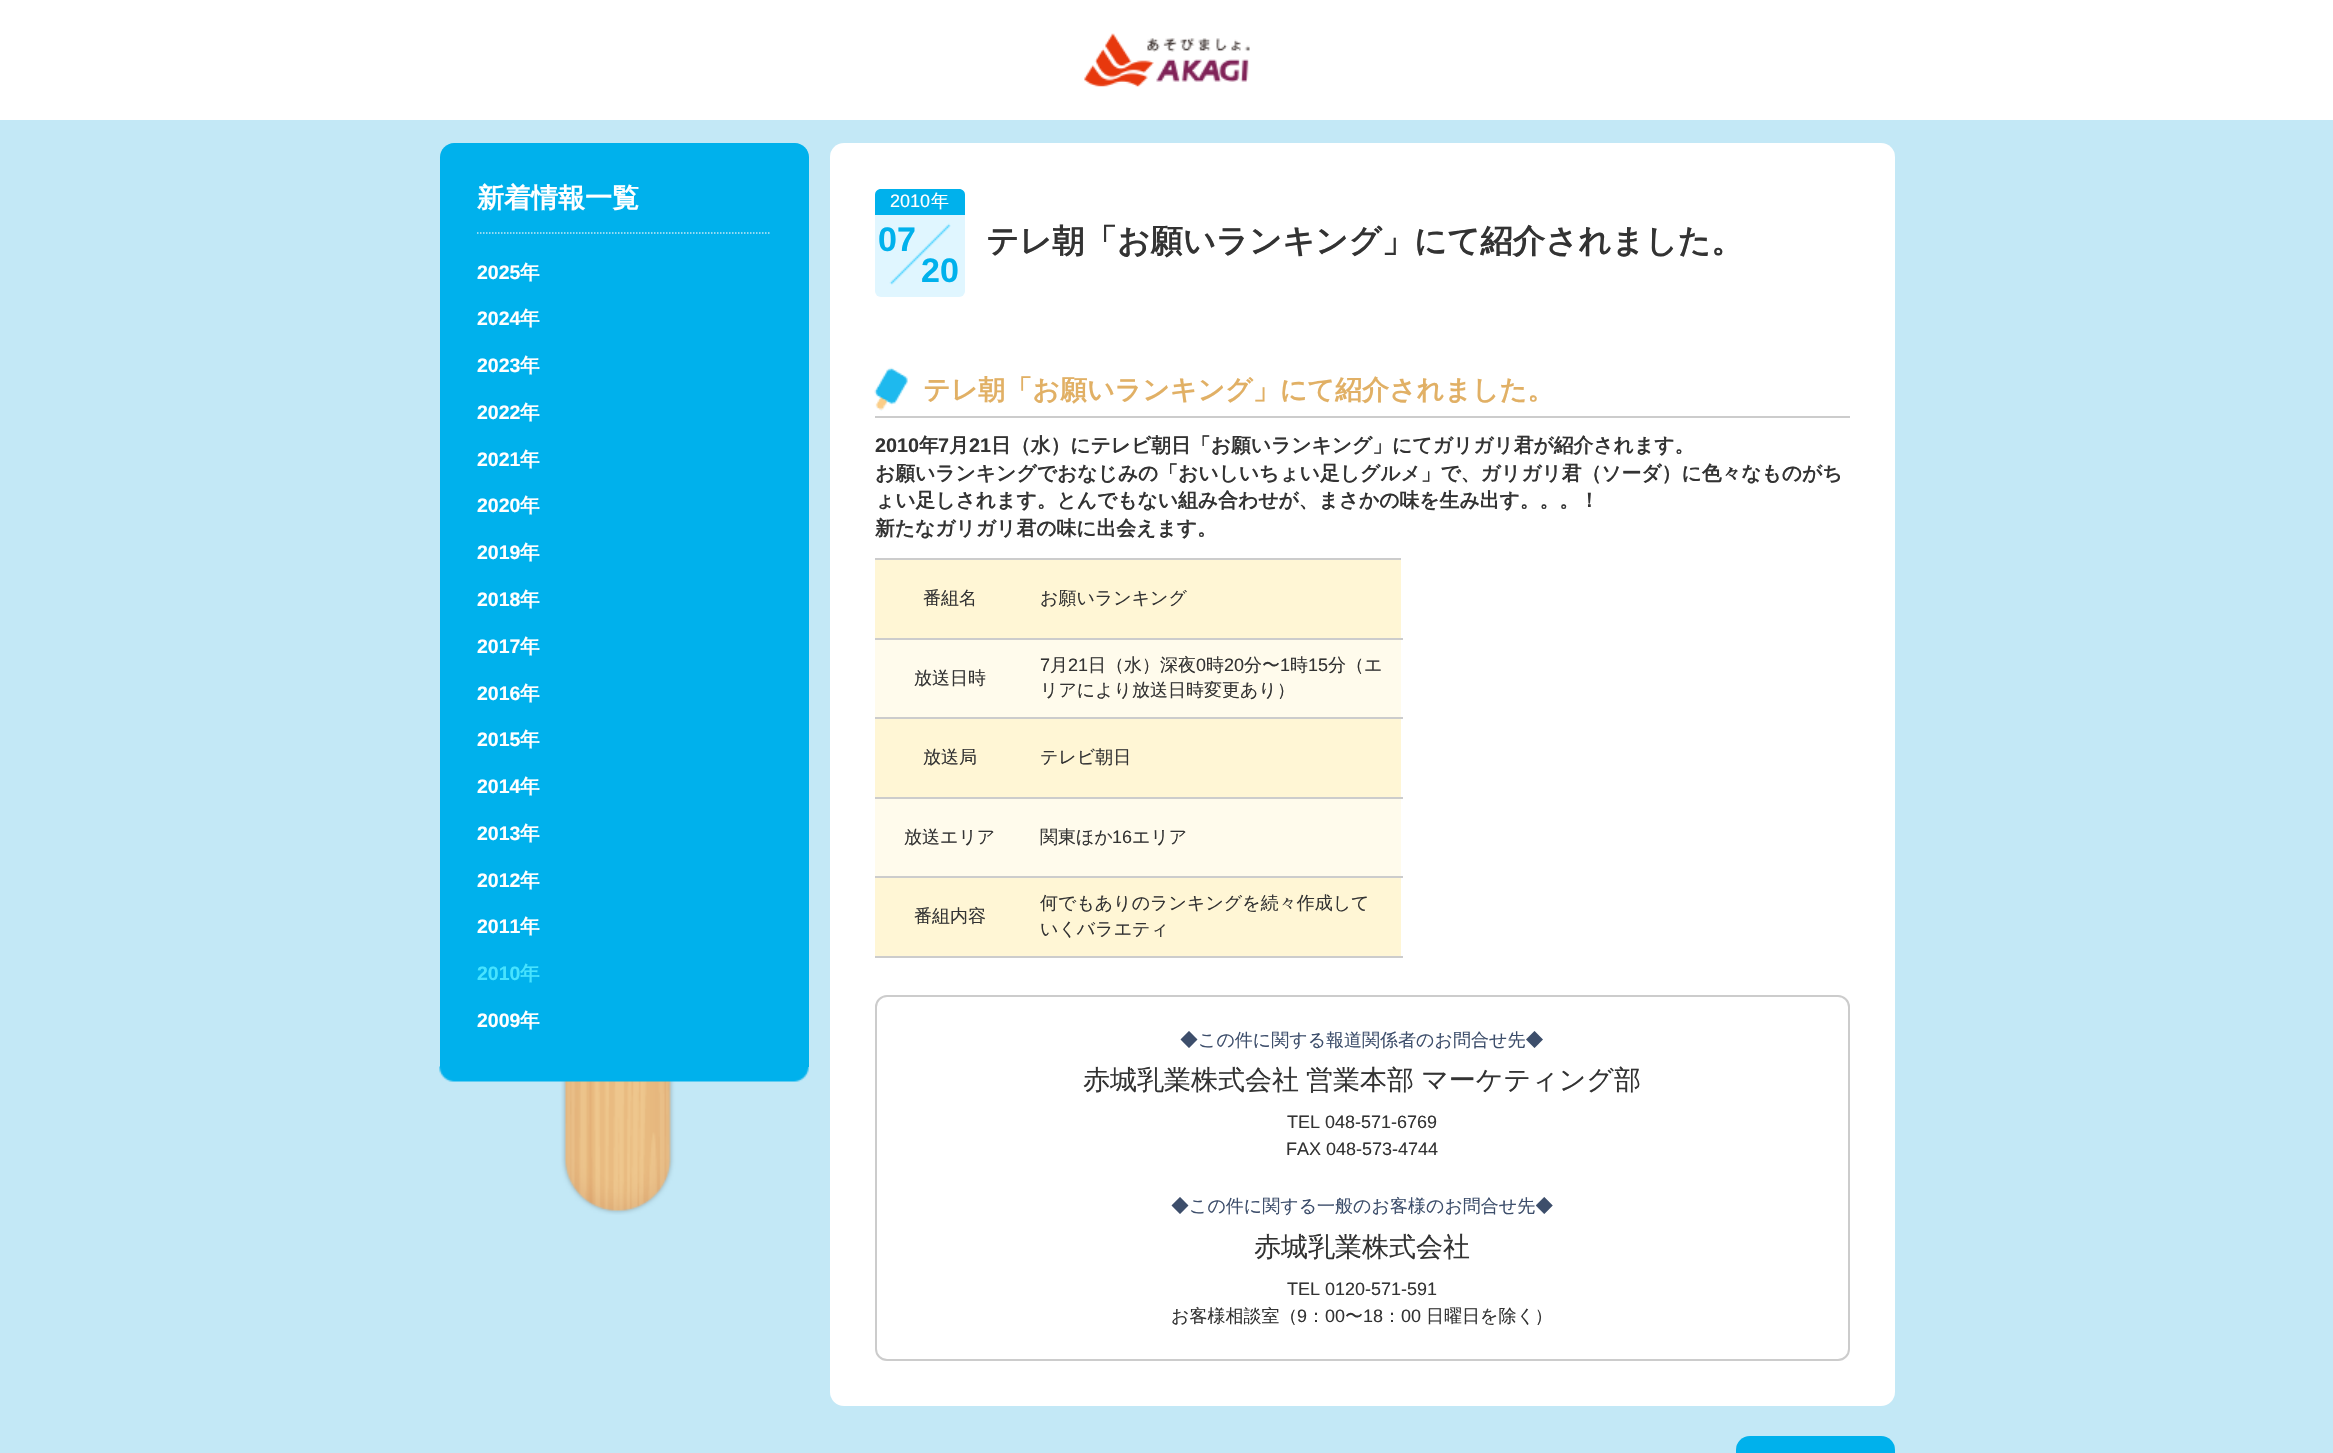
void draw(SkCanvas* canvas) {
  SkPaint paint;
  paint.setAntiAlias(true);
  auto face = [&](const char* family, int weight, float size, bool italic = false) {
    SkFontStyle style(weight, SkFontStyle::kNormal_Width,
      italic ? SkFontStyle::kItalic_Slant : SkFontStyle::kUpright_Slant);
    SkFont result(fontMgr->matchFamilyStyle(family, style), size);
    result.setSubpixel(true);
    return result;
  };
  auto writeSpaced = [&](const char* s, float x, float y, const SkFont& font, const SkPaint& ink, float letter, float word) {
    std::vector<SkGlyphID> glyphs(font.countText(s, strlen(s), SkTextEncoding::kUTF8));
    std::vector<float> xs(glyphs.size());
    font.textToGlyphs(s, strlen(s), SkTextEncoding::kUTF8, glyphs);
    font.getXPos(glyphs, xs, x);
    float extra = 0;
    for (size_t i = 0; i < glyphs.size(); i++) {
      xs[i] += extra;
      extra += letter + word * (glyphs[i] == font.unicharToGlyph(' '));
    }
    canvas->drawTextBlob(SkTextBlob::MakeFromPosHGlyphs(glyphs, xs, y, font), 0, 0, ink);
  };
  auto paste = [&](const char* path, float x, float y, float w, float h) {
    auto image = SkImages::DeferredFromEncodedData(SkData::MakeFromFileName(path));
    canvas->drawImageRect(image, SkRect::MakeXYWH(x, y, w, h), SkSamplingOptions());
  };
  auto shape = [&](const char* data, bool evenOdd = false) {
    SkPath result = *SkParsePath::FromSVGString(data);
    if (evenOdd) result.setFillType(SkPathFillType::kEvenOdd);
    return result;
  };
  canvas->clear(0xffc3e8f6);
  paint.setColor(0xffffffff);
  canvas->drawRect(SkRect::MakeXYWH(0, 0, 2333, 120), paint);
  paste("img/1.png", 1084, 33, 166, 54);
  paste("img/2.png", 439, 1066, 370, 149);
  paint.setColor(0xff00b1ec);
  canvas->drawPath(shape("M454 143H795C802.5 143 809 149.5 809 157V1067H440V157C440 149.5 446.5 143 454 143Z"), paint);
  paint.setStroke(true);
  paint.setStrokeWidth(1.5f);
  paint.setColor(0xffc3e8f6);
  paint.setPathEffect(SkDashPathEffect::Make({{1.5f, 1.5f}}, 0));
  canvas->drawPath(shape("M477 233H771"), paint);
  paint.setPathEffect(nullptr);
  paint.setStroke(false);
  paint.setColor(0xffffffff);
  canvas->drawRoundRect(SkRect::MakeXYWH(830, 143, 1065, 1263), 14, 14, paint);
  paint.setColor(0xffe0f6ff);
  canvas->drawRoundRect(SkRect::MakeXYWH(875, 189, 90, 108), 6, 6, paint);
  paste("img/3.png", 889, 223, 62, 62);
  paint.setColor(0xff00b1ec);
  canvas->drawPath(shape("M881 189H959C962.5 189 965 191.5 965 195V215H875V195C875 191.5 877.5 189 881 189Z"), paint);
  paste("img/4.png", 874, 367, 34, 44);
  {
    const struct { float x, y, w, h; SkColor color; } items[] = {
      {875, 416, 975, 2, 0xffcccccc},
      {875, 558, 526, 2, 0xffcccccc},
      {875, 560, 526, 78, 0xfffff6d5},
      {875, 638, 528, 2, 0xffcccccc},
      {875, 640, 526, 77, 0xfffffbec},
      {875, 717, 528, 2, 0xffcccccc},
      {875, 719, 526, 78, 0xfffff6d5},
      {875, 797, 528, 2, 0xffcccccc},
      {875, 799, 526, 77, 0xfffffbec},
      {875, 876, 528, 2, 0xffcccccc},
      {875, 878, 526, 78, 0xfffff6d5},
      {875, 956, 528, 2, 0xffcccccc},
    };
    for (auto [x, y, w, h, color] : items) {
      paint.setColor(color);
      canvas->drawRect(SkRect::MakeXYWH(x, y, w, h), paint);
    }
  }
  paint.setStroke(true);
  paint.setStrokeWidth(2);
  canvas->drawRoundRect(SkRect::MakeXYWH(876, 996, 973, 364), 11, 11, paint);
  paint.setStroke(false);
  paint.setColor(0xff00b1ec);
  canvas->drawRoundRect(SkRect::MakeXYWH(1736, 1436, 159, 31), 14, 14, paint);
  auto f0 = face("WenQuanYi Zen Hei", 700, 27);
  paint.setColor(0xffffffff);
  canvas->drawString("新着情報一覧", 477, 207, f0, paint);
  auto f1 = face("Liberation Sans", 700, 19.5f);
  canvas->drawString("2025", 477, 279, f1, paint);
  auto f2 = face("WenQuanYi Zen Hei", 700, 19.5f);
  canvas->drawString("年", 520, 279, f2, paint);
  canvas->drawString("2024", 477, 325, f1, paint);
  canvas->drawString("年", 520, 325, f2, paint);
  canvas->drawString("2023", 477, 372, f1, paint);
  canvas->drawString("年", 520, 372, f2, paint);
  canvas->drawString("2022", 477, 419, f1, paint);
  canvas->drawString("年", 520, 419, f2, paint);
  canvas->drawString("2021", 477, 466, f1, paint);
  canvas->drawString("年", 520, 466, f2, paint);
  canvas->drawString("2020", 477, 512, f1, paint);
  canvas->drawString("年", 520, 512, f2, paint);
  canvas->drawString("2019", 477, 559, f1, paint);
  canvas->drawString("年", 520, 559, f2, paint);
  canvas->drawString("2018", 477, 606, f1, paint);
  canvas->drawString("年", 520, 606, f2, paint);
  canvas->drawString("2017", 477, 653, f1, paint);
  canvas->drawString("年", 520, 653, f2, paint);
  canvas->drawString("2016", 477, 700, f1, paint);
  canvas->drawString("年", 520, 700, f2, paint);
  canvas->drawString("2015", 477, 746, f1, paint);
  canvas->drawString("年", 520, 746, f2, paint);
  canvas->drawString("2014", 477, 793, f1, paint);
  canvas->drawString("年", 520, 793, f2, paint);
  canvas->drawString("2013", 477, 840, f1, paint);
  canvas->drawString("年", 520, 840, f2, paint);
  canvas->drawString("2012", 477, 887, f1, paint);
  canvas->drawString("年", 520, 887, f2, paint);
  canvas->drawString("2011", 477, 933, f1, paint);
  canvas->drawString("年", 520, 933, f2, paint);
  paint.setColor(0xff47e3ff);
  canvas->drawString("2010", 477, 980, f1, paint);
  canvas->drawString("年", 520, 980, f2, paint);
  paint.setColor(0xffffffff);
  canvas->drawString("2009", 477, 1027, f1, paint);
  canvas->drawString("年", 520, 1027, f2, paint);
  auto f3 = face("Liberation Sans", 400, 18);
  canvas->drawString("2010", 890, 207, f3, paint);
  auto f4 = face("WenQuanYi Zen Hei", 500, 18);
  canvas->drawString("年", 931, 207, f4, paint);
  auto f5 = face("Liberation Sans", 700, 34);
  paint.setColor(0xff00b1ec);
  canvas->drawString("07", 878, 251, f5, paint);
  canvas->drawString("20", 921, 282, f5, paint);
  auto f6 = face("WenQuanYi Zen Hei", 700, 32.4f);
  paint.setColor(0xff333333);
  canvas->drawString("テレ朝「お願いランキング」にて紹介されました。", 986, 252, f6, paint);
  paint.setColor(0xffe1b065);
  canvas->drawString("テレ朝「お願いランキング」にて紹介されました。", 923, 399, f0, paint);
  auto f7 = face("Liberation Sans", 700, 19.8f);
  paint.setColor(0xff333333);
  canvas->drawString("2010", 875, 452, f7, paint);
  auto f8 = face("WenQuanYi Zen Hei", 700, 19.8f);
  canvas->drawString("年", 919, 452, f8, paint);
  canvas->drawString("7", 938, 452, f7, paint);
  canvas->drawString("月", 949, 452, f8, paint);
  canvas->drawString("21", 969, 452, f7, paint);
  {
    const struct { const char* s; float x, y; } items[] = {
      {"日（水）にテレビ朝日「お願いランキング」にてガリガリ君が紹介されます。", 991, 452},
      {"お願いランキングでおなじみの「おいしいちょい足しグルメ」で、ガリガリ君（ソーダ）に色々なものがち", 875, 480},
      {"ょい足しされます。とんでもない組み合わせが、まさかの味を生み出す。。。！", 875, 507},
      {"新たなガリガリ君の味に出会えます。", 875, 535},
    };
    for (auto [s, x, y] : items) {
      canvas->drawString(s, x, y, f8, paint);
    }
  }
  {
    const struct { const char* s; float x, y; } items[] = {
      {"番組名", 923, 604},
      {"お願いランキング", 1040, 604},
      {"放送日時", 914, 684},
    };
    for (auto [s, x, y] : items) {
      canvas->drawString(s, x, y, f4, paint);
    }
  }
  canvas->drawString("7", 1040, 671, f3, paint);
  canvas->drawString("月", 1050, 671, f4, paint);
  canvas->drawString("21", 1068, 671, f3, paint);
  canvas->drawString("日（水）深夜", 1088, 671, f4, paint);
  canvas->drawString("0", 1196, 671, f3, paint);
  canvas->drawString("時", 1206, 671, f4, paint);
  canvas->drawString("20", 1224, 671, f3, paint);
  canvas->drawString("分〜", 1244, 671, f4, paint);
  canvas->drawString("1", 1280, 671, f3, paint);
  canvas->drawString("時", 1290, 671, f4, paint);
  canvas->drawString("15", 1308, 671, f3, paint);
  {
    const struct { const char* s; float x, y; } items[] = {
      {"分（エ", 1328, 671},
      {"リアにより放送日時変更あり）", 1040, 696},
      {"放送局", 923, 763},
      {"テレビ朝日", 1040, 763},
      {"放送エリア", 904, 843},
      {"関東ほか", 1040, 843},
    };
    for (auto [s, x, y] : items) {
      canvas->drawString(s, x, y, f4, paint);
    }
  }
  canvas->drawString("16", 1112, 843, f3, paint);
  {
    const struct { const char* s; float x, y; } items[] = {
      {"エリア", 1132, 843},
      {"番組内容", 914, 922},
      {"何でもありのランキングを続々作成して", 1040, 909},
      {"いくバラエティ", 1040, 935},
    };
    for (auto [s, x, y] : items) {
      canvas->drawString(s, x, y, f4, paint);
    }
  }
  paint.setColor(0xff3d4e6b);
  canvas->drawString("◆この件に関する報道関係者のお問合せ先◆", 1180, 1046, f4, paint);
  auto f9 = face("WenQuanYi Zen Hei", 500, 27);
  paint.setColor(0xff333333);
  writeSpaced("赤城乳業株式会社 営業本部 マーケティング部", 1083, 1089, f9, paint, 0, -1);
  canvas->drawString("TEL 048-571-6769", 1287, 1128, f3, paint);
  canvas->drawString("FAX 048-573-4744", 1286, 1155, f3, paint);
  paint.setColor(0xff3d4e6b);
  canvas->drawString("◆この件に関する一般のお客様のお問合せ先◆", 1171, 1212, f4, paint);
  paint.setColor(0xff333333);
  canvas->drawString("赤城乳業株式会社", 1254, 1256, f9, paint);
  canvas->drawString("TEL 0120-571-591", 1287, 1295, f3, paint);
  canvas->drawString("お客様相談室（", 1171, 1322, f4, paint);
  canvas->drawString("9", 1297, 1322, f3, paint);
  canvas->drawString("：", 1307, 1322, f4, paint);
  canvas->drawString("00", 1325, 1322, f3, paint);
  canvas->drawString("〜", 1345, 1322, f4, paint);
  canvas->drawString("18", 1363, 1322, f3, paint);
  canvas->drawString("：", 1383, 1322, f4, paint);
  canvas->drawString("00", 1401, 1322, f3, paint);
  canvas->drawString("日曜日を除く）", 1426, 1322, f4, paint);
}
